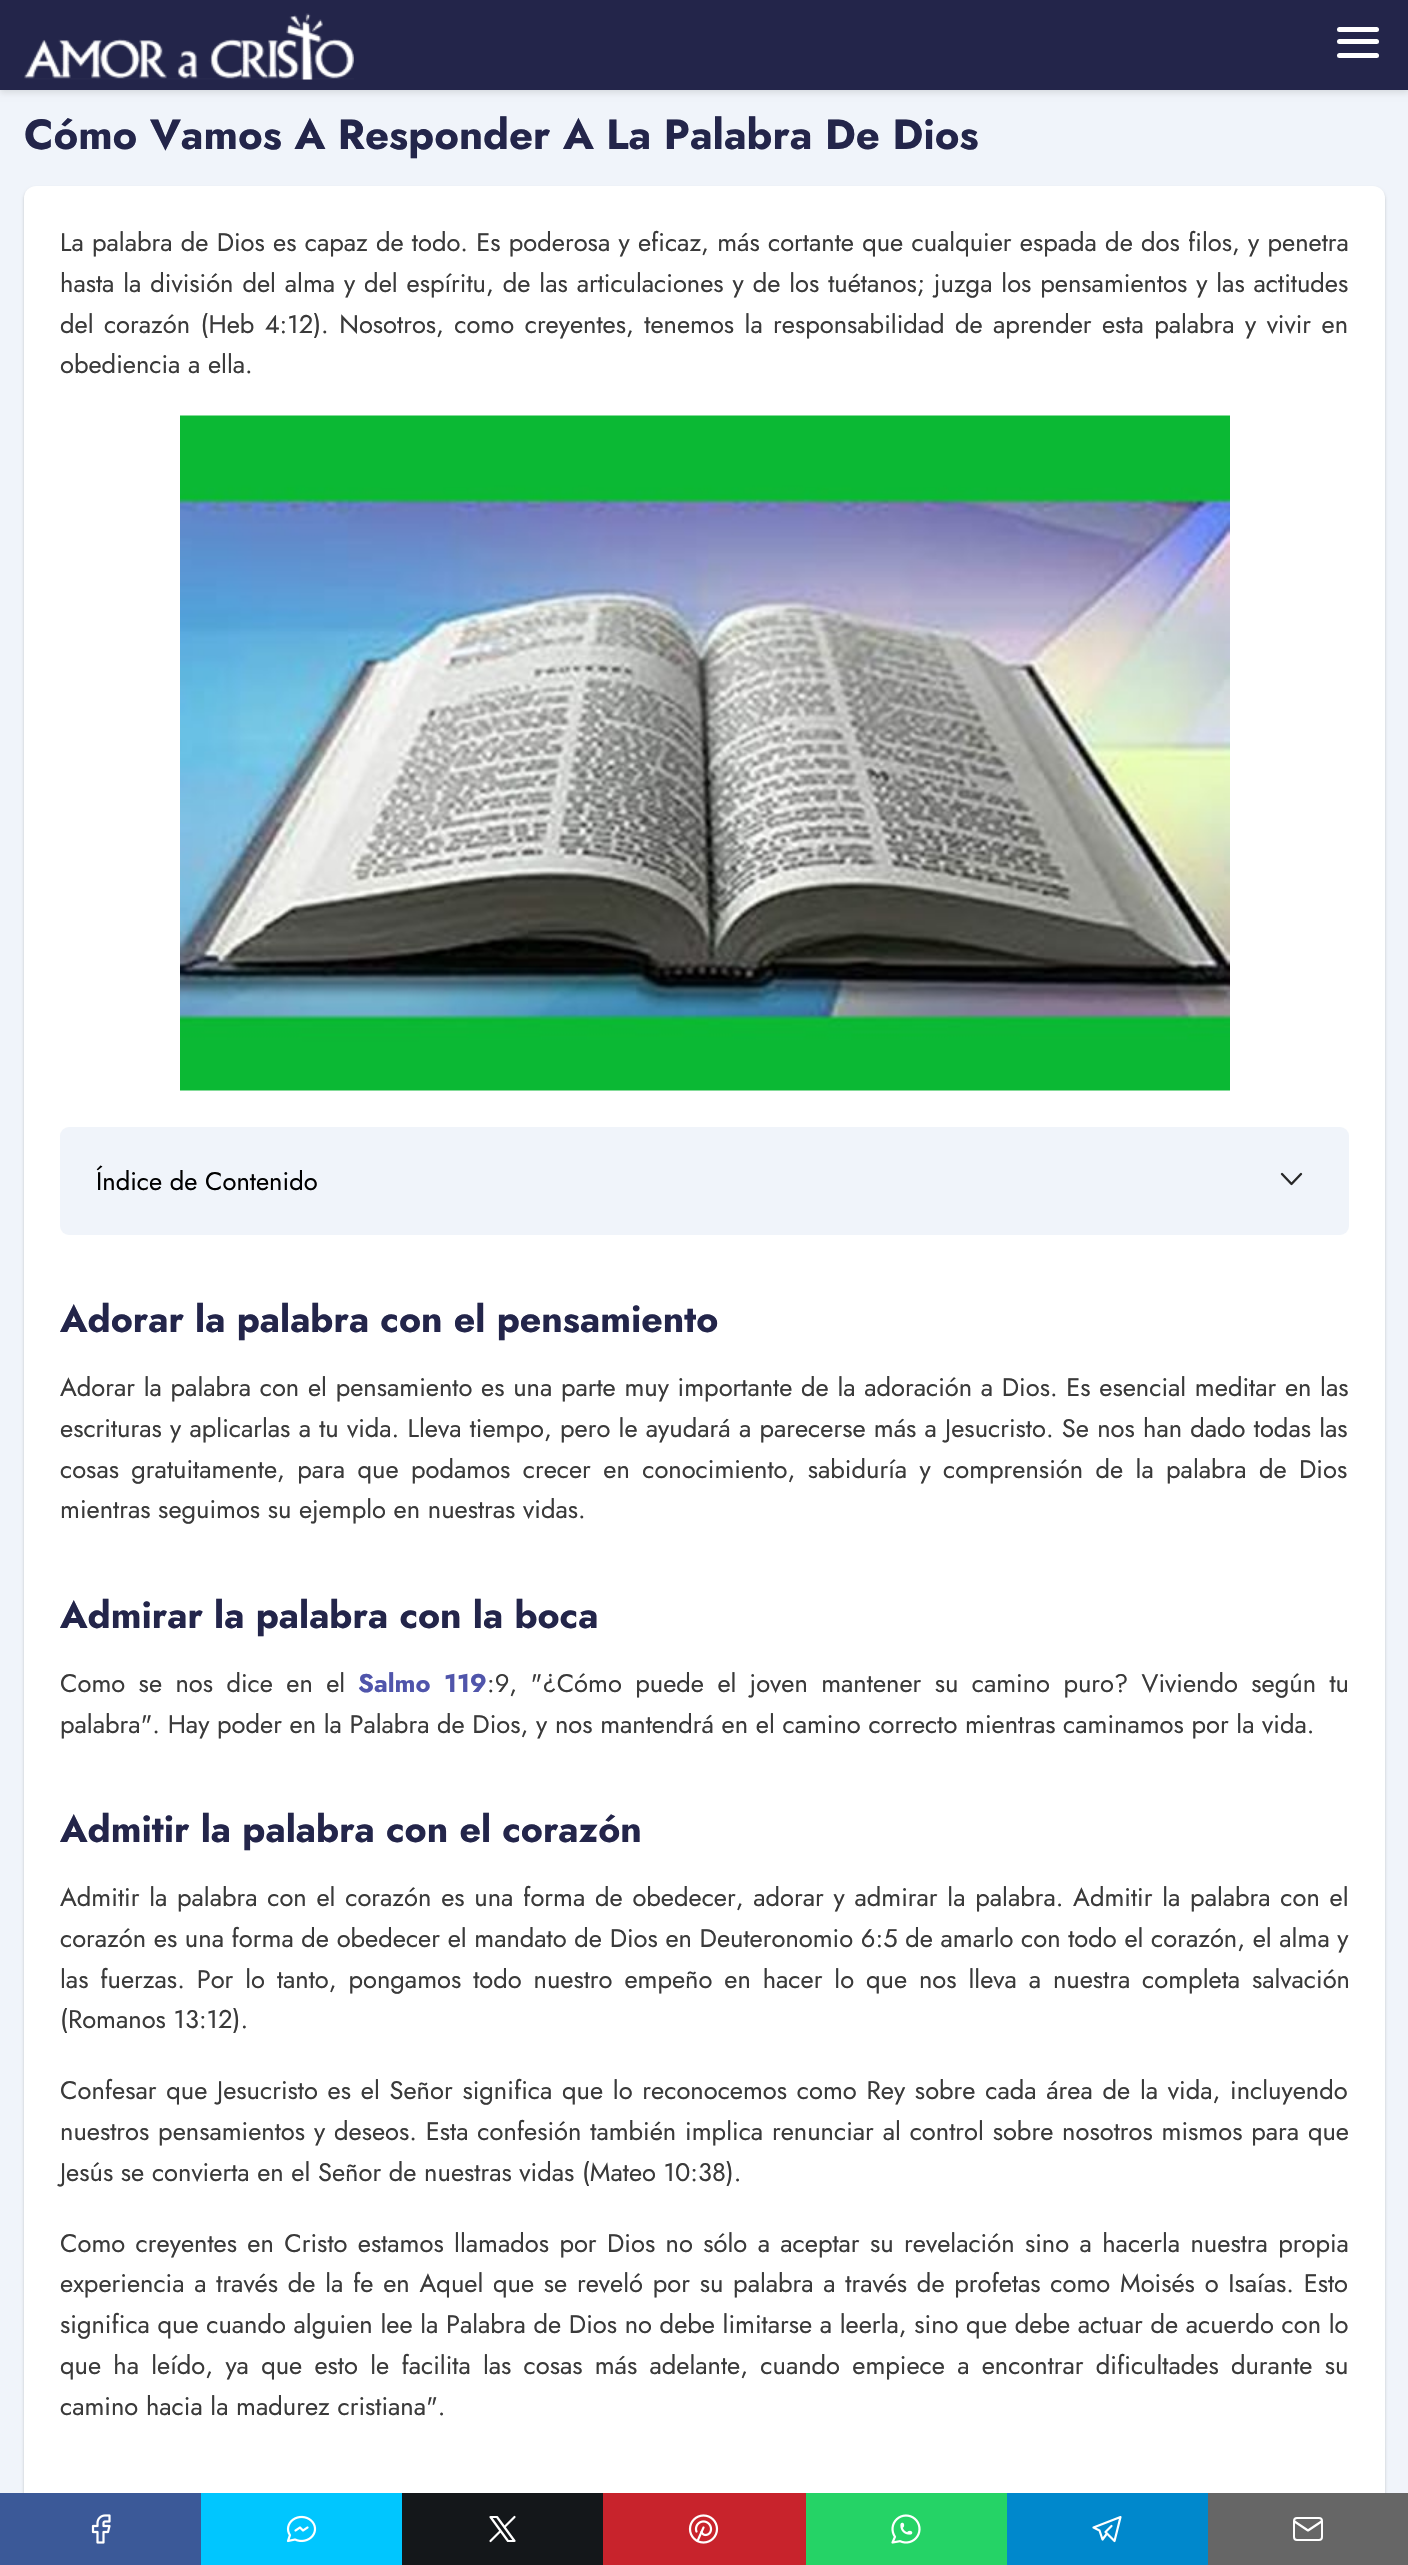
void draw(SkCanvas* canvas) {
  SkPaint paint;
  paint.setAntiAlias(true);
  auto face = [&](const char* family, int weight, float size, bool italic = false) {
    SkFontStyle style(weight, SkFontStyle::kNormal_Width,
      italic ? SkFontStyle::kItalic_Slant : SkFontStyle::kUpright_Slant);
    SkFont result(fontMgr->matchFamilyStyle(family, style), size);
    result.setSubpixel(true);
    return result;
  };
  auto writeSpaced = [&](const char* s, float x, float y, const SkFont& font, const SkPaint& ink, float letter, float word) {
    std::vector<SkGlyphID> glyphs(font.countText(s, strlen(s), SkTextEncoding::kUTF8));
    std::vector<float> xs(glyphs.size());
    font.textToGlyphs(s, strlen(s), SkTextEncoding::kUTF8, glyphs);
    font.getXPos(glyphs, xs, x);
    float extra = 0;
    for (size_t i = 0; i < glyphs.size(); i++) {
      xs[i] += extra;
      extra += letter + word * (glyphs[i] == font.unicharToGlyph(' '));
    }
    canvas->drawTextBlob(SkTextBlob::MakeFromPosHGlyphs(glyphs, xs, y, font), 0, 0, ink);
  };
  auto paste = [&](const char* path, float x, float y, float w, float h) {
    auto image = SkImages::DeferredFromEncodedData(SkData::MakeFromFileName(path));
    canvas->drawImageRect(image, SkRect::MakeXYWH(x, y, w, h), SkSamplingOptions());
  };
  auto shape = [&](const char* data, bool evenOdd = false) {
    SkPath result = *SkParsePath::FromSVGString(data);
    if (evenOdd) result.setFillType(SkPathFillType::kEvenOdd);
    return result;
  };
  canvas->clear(0xfff0f4fa);
  paint.setColor(0x1a000000);
  paint.setMaskFilter(SkMaskFilter::MakeBlur(kNormal_SkBlurStyle, 3));
  canvas->drawRect(SkRect::MakeXYWH(0, 3, 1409, 90), paint);
  paint.setMaskFilter(nullptr);
  paint.setColor(0xff23254a);
  canvas->drawRect(SkRect::MakeXYWH(0, 0, 1408, 90), paint);
  paste("img/1.png", 24, 13, 330, 67);
  paint.setColor(0xffffffff);
  canvas->drawRoundRect(SkRect::MakeXYWH(1337, 27, 42, 5), 2.5f, 2.5f, paint);
  canvas->drawRoundRect(SkRect::MakeXYWH(1337, 39, 42, 5), 2.5f, 2.5f, paint);
  canvas->drawRoundRect(SkRect::MakeXYWH(1337, 53, 42, 5), 2.5f, 2.5f, paint);
  paint.setColor(0x33000000);
  paint.setMaskFilter(SkMaskFilter::MakeBlur(kNormal_SkBlurStyle, 1.5f));
  canvas->drawRoundRect(SkRect::MakeXYWH(24, 188, 1361, 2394), 12, 12, paint);
  paint.setMaskFilter(nullptr);
  paint.setColor(0xffffffff);
  canvas->drawRoundRect(SkRect::MakeXYWH(24, 186, 1361, 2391), 12, 12, paint);
  paste("img/2.png", 180, 415, 1050, 676);
  paint.setColor(0xfff0f4fa);
  canvas->drawRoundRect(SkRect::MakeXYWH(60, 1127, 1289, 108), 9, 9, paint);
  paint.setStroke(true);
  paint.setStrokeWidth(2.4f);
  paint.setStrokeCap(SkPaint::kRound_Cap);
  paint.setStrokeJoin(SkPaint::kRound_Join);
  paint.setColor(0xff282828);
  canvas->drawPath(shape("M1282 1174L1291.5 1184L1301 1174"), paint);
  paint.setStroke(false);
  paint.setColor(0xff3b5998);
  canvas->drawRect(SkRect::MakeXYWH(0, 2493, 201, 72), paint);
  paste("img/3.png", 91, 2514, 20, 30);
  paint.setColor(0xff00c6ff);
  canvas->drawRect(SkRect::MakeXYWH(201, 2493, 201, 72), paint);
  paste("img/4.png", 286, 2515, 31, 28);
  paint.setColor(0xff14171a);
  canvas->drawRect(SkRect::MakeXYWH(402, 2493, 201, 72), paint);
  paint.setStroke(true);
  paint.setStrokeWidth(2.2f);
  paint.setColor(0xffffffff);
  canvas->drawPath(shape("M490.5 2517L508 2541H514.5L497 2517ZM490.5 2541L500.5 2531M504.5 2527L514.5 2517"), paint);
  paint.setStroke(false);
  paint.setColor(0xffc8232c);
  canvas->drawRect(SkRect::MakeXYWH(603, 2493, 203, 72), paint);
  paste("img/5.png", 688, 2514, 31, 30);
  paint.setColor(0xff25d366);
  canvas->drawRect(SkRect::MakeXYWH(806, 2493, 201, 72), paint);
  paste("img/6.png", 891, 2514, 30, 30);
  paint.setColor(0xff0088cc);
  canvas->drawRect(SkRect::MakeXYWH(1007, 2493, 201, 72), paint);
  paint.setStroke(true);
  paint.setColor(0xffffffff);
  canvas->drawPath(shape("M1111.5 2526L1105.5 2532L1114.5 2541L1120.5 2517L1093.5 2527.5L1099.5 2530.5L1102.5 2539.5L1107 2533.5"), paint);
  paint.setStroke(false);
  paint.setColor(0xff666666);
  canvas->drawRect(SkRect::MakeXYWH(1208, 2493, 200, 72), paint);
  paint.setStroke(true);
  paint.setStrokeWidth(2);
  paint.setStrokeCap(SkPaint::kButt_Cap);
  paint.setStrokeJoin(SkPaint::kMiter_Join);
  paint.setColor(0xffffffff);
  canvas->drawRoundRect(SkRect::MakeXYWH(1294, 2518, 28, 22), 3, 3, paint);
  paint.setStrokeWidth(2.2f);
  paint.setStrokeCap(SkPaint::kRound_Cap);
  paint.setStrokeJoin(SkPaint::kRound_Join);
  canvas->drawPath(shape("M1294.5 2521.5L1308 2530.5L1321.5 2521.5"), paint);
  auto f0 = face("Jost", 700, 42);
  paint.setStroke(false);
  paint.setColor(0xff23254a);
  canvas->drawString("Cómo Vamos A Responder A La Palabra De Dios", 24, 149, f0, paint);
  auto f1 = face("Jost", 400, 25.5f);
  paint.setColor(0xff3a3a3a);
  writeSpaced("La palabra de Dios es capaz de todo. Es poderosa y eficaz, más cortante que cualquier espada de dos filos, y penetra", 60, 251, f1, paint, 0, 0.6f);
  writeSpaced("hasta la división del alma y del espíritu, de las articulaciones y de los tuétanos; juzga los pensamientos y las actitudes", 60, 292, f1, paint, 0, 1.25f);
  writeSpaced("del corazón (Heb 4:12). Nosotros, como creyentes, tenemos la responsabilidad de aprender esta palabra y vivir en", 60, 333, f1, paint, 0, 2.75f);
  canvas->drawString("obediencia a ella.", 60, 373, f1, paint);
  paint.setColor(0xff000000);
  canvas->drawString("Índice de Contenido", 96, 1190, f1, paint);
  auto f2 = face("Jost", 700, 37.5f);
  paint.setColor(0xff23254a);
  canvas->drawString("Adorar la palabra con el pensamiento", 60, 1332, f2, paint);
  paint.setColor(0xff3a3a3a);
  writeSpaced("Adorar la palabra con el pensamiento es una parte muy importante de la adoración a Dios. Es esencial meditar en las", 60, 1396, f1, paint, 0, 1.05f);
  writeSpaced("escrituras y aplicarlas a tu vida. Lleva tiempo, pero le ayudará a parecerse más a Jesucristo. Se nos han dado todas las", 60, 1437, f1, paint, 0, 0.6f);
  writeSpaced("cosas gratuitamente, para que podamos crecer en conocimiento, sabiduría y comprensión de la palabra de Dios", 60, 1478, f1, paint, 0, 4.75f);
  canvas->drawString("mientras seguimos su ejemplo en nuestras vidas.", 60, 1518, f1, paint);
  paint.setColor(0xff23254a);
  canvas->drawString("Admirar la palabra con la boca", 60, 1628, f2, paint);
  paint.setColor(0xff3a3a3a);
  writeSpaced("Como se nos dice en el", 60, 1692, f1, paint, 0, 5.75f);
  auto f3 = face("Jost", 700, 25.5f);
  paint.setColor(0xff5055ab);
  writeSpaced("Salmo 119", 358, 1692, f3, paint, 0, 5.75f);
  paint.setColor(0xff3a3a3a);
  writeSpaced(":9, \"¿Cómo puede el joven mantener su camino puro? Viviendo según tu", 487, 1692, f1, paint, 0, 5.75f);
  canvas->drawString("palabra\". Hay poder en la Palabra de Dios, y nos mantendrá en el camino correcto mientras caminamos por la vida.", 60, 1733, f1, paint);
  paint.setColor(0xff23254a);
  canvas->drawString("Admitir la palabra con el corazón", 60, 1842, f2, paint);
  paint.setColor(0xff3a3a3a);
  writeSpaced("Admitir la palabra con el corazón es una forma de obedecer, adorar y admirar la palabra. Admitir la palabra con el", 60, 1906, f1, paint, 0, 2.1f);
  canvas->drawString("corazón es una forma de obedecer el mandato de Dios en Deuteronomio 6:5 de amarlo con todo el corazón, el alma y", 60, 1947, f1, paint);
  writeSpaced("las fuerzas. Por lo tanto, pongamos todo nuestro empeño en hacer lo que nos lleva a nuestra completa salvación", 60, 1988, f1, paint, 0, 4.25f);
  canvas->drawString("(Romanos 13:12).", 60, 2028, f1, paint);
  writeSpaced("Confesar que Jesucristo es el Señor significa que lo reconocemos como Rey sobre cada área de la vida, incluyendo", 60, 2099, f1, paint, 0, 2.1f);
  writeSpaced("nuestros pensamientos y deseos. Esta confesión también implica renunciar al control sobre nosotros mismos para que", 60, 2140, f1, paint, 0, 1.2f);
  canvas->drawString("Jesús se convierta en el Señor de nuestras vidas (Mateo 10:38).", 60, 2181, f1, paint);
  writeSpaced("Como creyentes en Cristo estamos llamados por Dios no sólo a aceptar su revelación sino a hacerla nuestra propia", 60, 2252, f1, paint, 0, 2.75f);
  writeSpaced("experiencia a través de la fe en Aquel que se reveló por su palabra a través de profetas como Moisés o Isaías. Esto", 60, 2292, f1, paint, 0, 2.1f);
  canvas->drawString("significa que cuando alguien lee la Palabra de Dios no debe limitarse a leerla, sino que debe actuar de acuerdo con lo", 60, 2333, f1, paint);
  writeSpaced("que ha leído, ya que esto le facilita las cosas más adelante, cuando empiece a encontrar dificultades durante su", 60, 2374, f1, paint, 0, 4.6f);
  canvas->drawString("camino hacia la madurez cristiana\".", 60, 2415, f1, paint);
}
